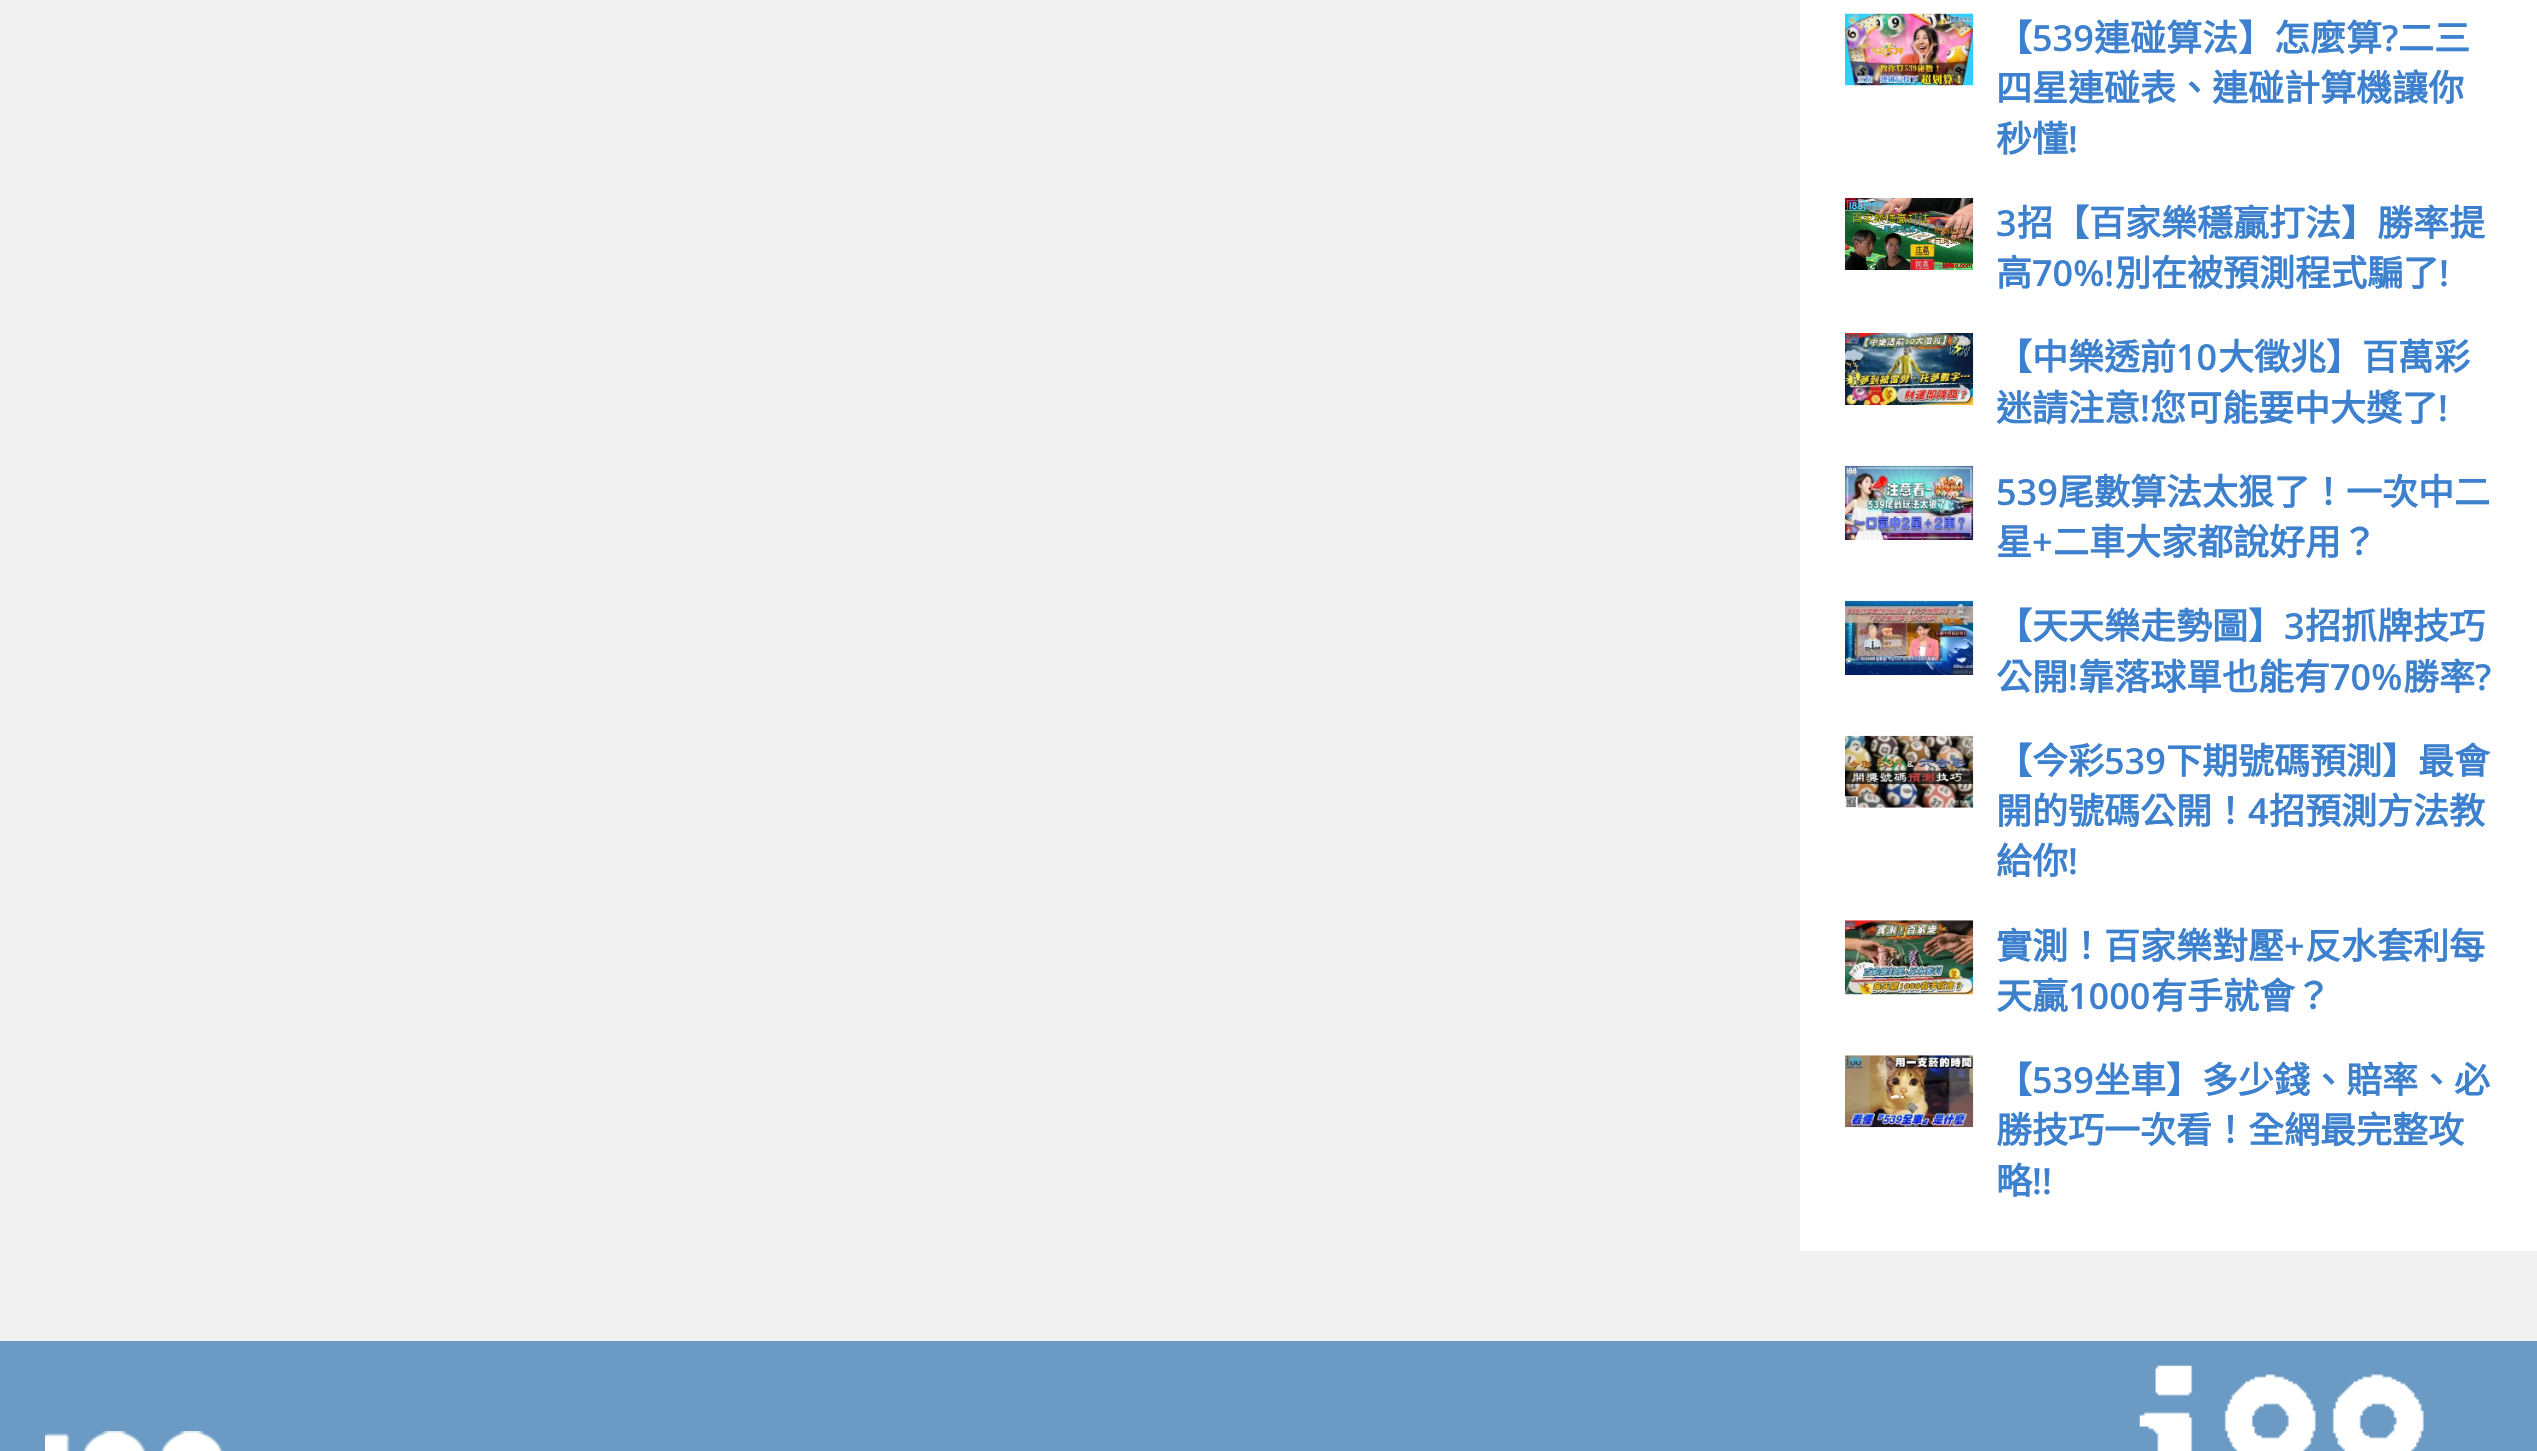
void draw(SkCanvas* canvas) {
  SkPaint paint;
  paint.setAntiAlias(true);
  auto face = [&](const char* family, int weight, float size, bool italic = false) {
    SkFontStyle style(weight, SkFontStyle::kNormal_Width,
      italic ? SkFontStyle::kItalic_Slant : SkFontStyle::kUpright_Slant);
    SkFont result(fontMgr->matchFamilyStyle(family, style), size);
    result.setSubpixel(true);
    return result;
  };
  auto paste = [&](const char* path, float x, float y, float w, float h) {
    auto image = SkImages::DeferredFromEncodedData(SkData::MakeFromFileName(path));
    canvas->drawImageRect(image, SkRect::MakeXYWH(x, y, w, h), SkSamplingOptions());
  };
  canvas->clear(0xfff1f1f1);
  paint.setColor(0xffffffff);
  canvas->drawRect(SkRect::MakeXYWH(1800, 0, 737, 1251), paint);
  paste("img/1.png", 1845, 13, 129, 73);
  paste("img/2.png", 1845, 198, 129, 72);
  paste("img/3.png", 1845, 333, 129, 72);
  paste("img/4.png", 1845, 465, 129, 75);
  paste("img/5.png", 1845, 600, 129, 75);
  paste("img/6.png", 1845, 735, 129, 73);
  paste("img/7.png", 1845, 920, 129, 75);
  paste("img/8.png", 1845, 1055, 129, 73);
  paint.setColor(0xff6b9ac4);
  canvas->drawRect(SkRect::MakeXYWH(0, 1341, 2537, 110), paint);
  paste("img/9.png", 45, 1431, 178, 20);
  paste("img/10.png", 2139, 1365, 285, 86);
  auto f0 = face("Noto Sans CJK TC", 700, 36);
  paint.setColor(0xff3d81ce);
  canvas->drawString("【", 1996, 51, f0, paint);
  auto f1 = face("Open Sans", 600, 36);
  canvas->drawString("539", 2032, 51, f1, paint);
  canvas->drawString("連碰算法】怎麼算", 2094, 51, f0, paint);
  canvas->drawString("?", 2382, 51, f1, paint);
  {
    const struct { const char* s; float x, y; } items[] = {
      {"二三", 2398, 51},
      {"四星連碰表、連碰計算機讓你", 1996, 101},
      {"秒懂", 1996, 152},
    };
    for (auto [s, x, y] : items) {
      canvas->drawString(s, x, y, f0, paint);
    }
  }
  canvas->drawString("!", 2068, 152, f1, paint);
  canvas->drawString("3", 1996, 236, f1, paint);
  canvas->drawString("招【百家樂穩贏打法】勝率提", 2017, 236, f0, paint);
  canvas->drawString("高", 1996, 286, f0, paint);
  canvas->drawString("70%!", 2032, 286, f1, paint);
  canvas->drawString("別在被預測程式騙了", 2115, 286, f0, paint);
  canvas->drawString("!", 2439, 286, f1, paint);
  canvas->drawString("【中樂透前", 1996, 370, f0, paint);
  canvas->drawString("10", 2176, 370, f1, paint);
  canvas->drawString("大徵兆】百萬彩", 2218, 370, f0, paint);
  canvas->drawString("迷請注意", 1996, 421, f0, paint);
  canvas->drawString("!", 2140, 421, f1, paint);
  canvas->drawString("您可能要中大獎了", 2150, 421, f0, paint);
  canvas->drawString("!", 2438, 421, f1, paint);
  canvas->drawString("539", 1996, 505, f1, paint);
  canvas->drawString("尾數算法太狠了！一次中二", 2058, 505, f0, paint);
  canvas->drawString("星", 1996, 555, f0, paint);
  canvas->drawString("+", 2032, 555, f1, paint);
  canvas->drawString("二車大家都說好用？", 2053, 555, f0, paint);
  canvas->drawString("【天天樂走勢圖】", 1996, 639, f0, paint);
  canvas->drawString("3", 2284, 639, f1, paint);
  canvas->drawString("招抓牌技巧", 2305, 639, f0, paint);
  canvas->drawString("公開", 1996, 690, f0, paint);
  canvas->drawString("!", 2068, 690, f1, paint);
  canvas->drawString("靠落球單也能有", 2078, 690, f0, paint);
  canvas->drawString("70%", 2330, 690, f1, paint);
  canvas->drawString("勝率", 2403, 690, f0, paint);
  canvas->drawString("?", 2475, 690, f1, paint);
  canvas->drawString("【今彩", 1996, 774, f0, paint);
  canvas->drawString("539", 2104, 774, f1, paint);
  canvas->drawString("下期號碼預測】最會", 2166, 774, f0, paint);
  canvas->drawString("開的號碼公開！", 1996, 824, f0, paint);
  canvas->drawString("4", 2248, 824, f1, paint);
  canvas->drawString("招預測方法教", 2269, 824, f0, paint);
  canvas->drawString("給你", 1996, 874, f0, paint);
  canvas->drawString("!", 2068, 874, f1, paint);
  canvas->drawString("實測！百家樂對壓", 1996, 959, f0, paint);
  canvas->drawString("+", 2284, 959, f1, paint);
  canvas->drawString("反水套利每", 2305, 959, f0, paint);
  canvas->drawString("天贏", 1996, 1009, f0, paint);
  canvas->drawString("1000", 2068, 1009, f1, paint);
  canvas->drawString("有手就會？", 2151, 1009, f0, paint);
  canvas->drawString("【", 1996, 1093, f0, paint);
  canvas->drawString("539", 2032, 1093, f1, paint);
  {
    const struct { const char* s; float x, y; } items[] = {
      {"坐車】多少錢、賠率、必", 2094, 1093},
      {"勝技巧一次看！全網最完整攻", 1996, 1143},
      {"略", 1996, 1194},
    };
    for (auto [s, x, y] : items) {
      canvas->drawString(s, x, y, f0, paint);
    }
  }
  canvas->drawString("!!", 2032, 1194, f1, paint);
}
